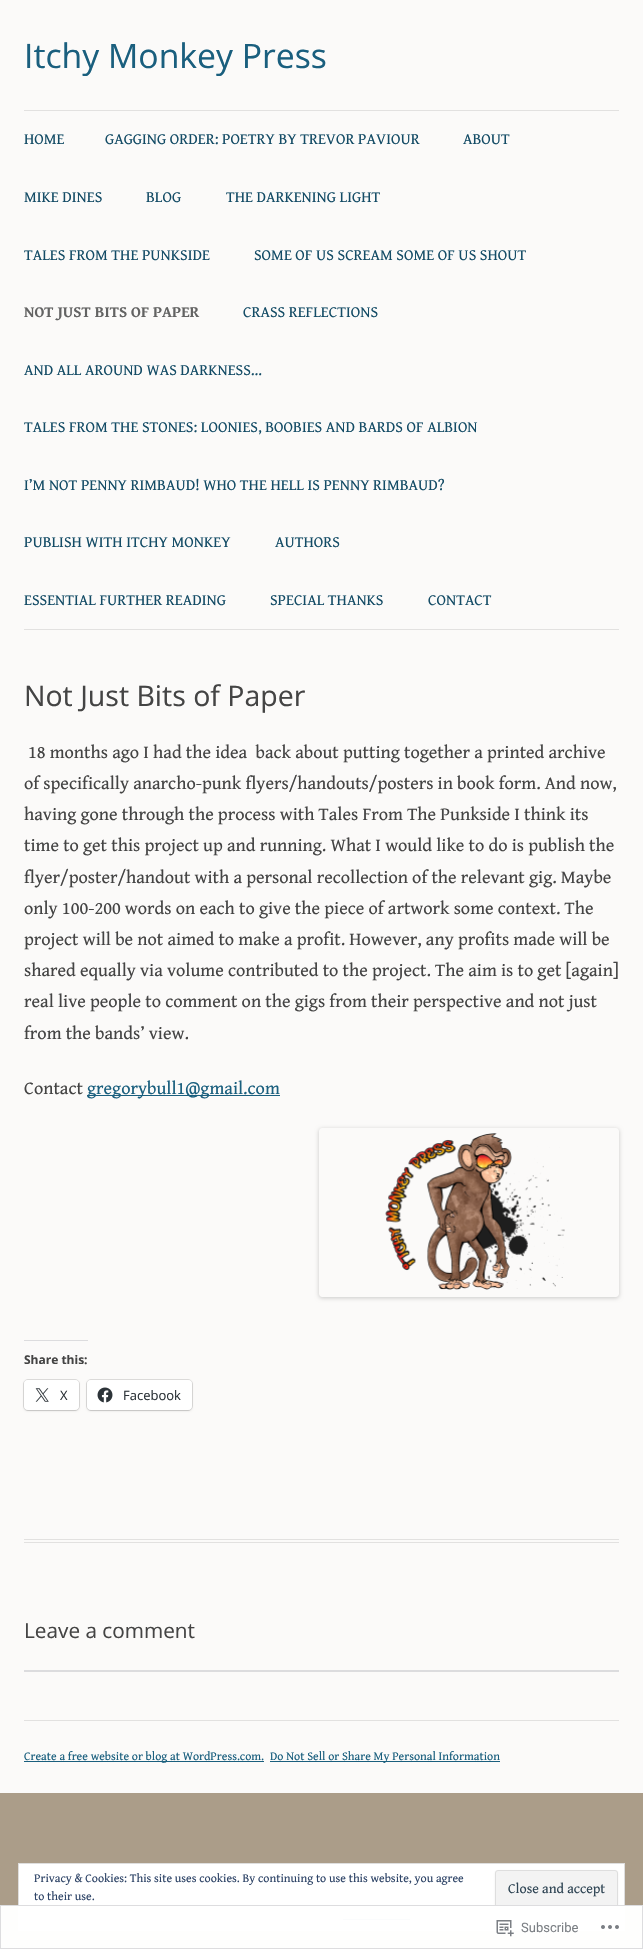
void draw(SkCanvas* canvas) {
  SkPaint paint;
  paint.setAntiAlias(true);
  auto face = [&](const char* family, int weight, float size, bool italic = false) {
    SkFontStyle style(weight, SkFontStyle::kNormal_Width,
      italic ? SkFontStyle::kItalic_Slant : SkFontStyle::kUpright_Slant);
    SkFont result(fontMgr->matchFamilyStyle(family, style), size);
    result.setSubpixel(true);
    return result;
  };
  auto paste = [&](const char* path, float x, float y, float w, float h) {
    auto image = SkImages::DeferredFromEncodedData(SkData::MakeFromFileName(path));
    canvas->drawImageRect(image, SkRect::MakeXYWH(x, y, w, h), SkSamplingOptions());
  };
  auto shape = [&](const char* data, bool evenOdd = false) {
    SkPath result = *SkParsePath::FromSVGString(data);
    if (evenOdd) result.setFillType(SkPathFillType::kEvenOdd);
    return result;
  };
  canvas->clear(0xffab9d89);
  {
    const struct { float x, y, w, h; SkColor color; } items[] = {
      {0, 0, 643, 1793, 0xfffbfaf9},
      {24, 110, 595, 1, 0xffe2e1e0},
      {24, 629, 595, 1, 0xffe2e1e0},
      {24, 1539, 595, 1, 0xffe2e1e0},
      {24, 1542, 595, 1, 0xffe2e1e0},
      {87, 1095, 193, 1, 0xff1a5f7e},
    };
    for (auto [x, y, w, h, color] : items) {
      paint.setColor(color);
      canvas->drawRect(SkRect::MakeXYWH(x, y, w, h), paint);
    }
  }
  canvas->save();
  canvas->clipPath(shape("M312 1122H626V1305H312ZM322 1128H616C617.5 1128 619 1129.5 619 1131V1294C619 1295.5 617.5 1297 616 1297H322C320.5 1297 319 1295.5 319 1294V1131C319 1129.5 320.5 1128 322 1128Z", true), true);
  paint.setColor(0x33000000);
  paint.setMaskFilter(SkMaskFilter::MakeBlur(kNormal_SkBlurStyle, 2));
  canvas->drawRoundRect(SkRect::MakeXYWH(319, 1129, 300, 169), 3, 3, paint);
  paint.setMaskFilter(nullptr);
  canvas->restore();
  paste("img/1.png", 385, 1133, 180, 157);
  paint.setColor(0xffdcdcde);
  canvas->drawRect(SkRect::MakeXYWH(24, 1340, 64, 1), paint);
  paint.setStroke(true);
  paint.setStrokeWidth(1);
  paint.setColor(0xffdddcdb);
  canvas->drawRoundRect(SkRect::MakeXYWH(23.5f, 1379.5f, 56, 31), 4.5f, 4.5f, paint);
  paint.setStroke(false);
  paint.setColor(0x1f000000);
  paint.setMaskFilter(SkMaskFilter::MakeBlur(kNormal_SkBlurStyle, 1));
  canvas->drawRoundRect(SkRect::MakeXYWH(24, 1381, 55, 30), 4, 4, paint);
  paint.setMaskFilter(nullptr);
  paint.setColor(0xffffffff);
  canvas->drawRoundRect(SkRect::MakeXYWH(24, 1380, 55, 30), 4, 4, paint);
  paste("img/2.png", 35, 1388, 14, 14);
  paint.setStroke(true);
  paint.setColor(0xffdddcdb);
  canvas->drawRoundRect(SkRect::MakeXYWH(86.5f, 1379.5f, 106, 31), 4.5f, 4.5f, paint);
  paint.setStroke(false);
  paint.setColor(0x1f000000);
  paint.setMaskFilter(SkMaskFilter::MakeBlur(kNormal_SkBlurStyle, 1));
  canvas->drawRoundRect(SkRect::MakeXYWH(87, 1381, 105, 30), 4, 4, paint);
  paint.setMaskFilter(nullptr);
  paint.setColor(0xffffffff);
  canvas->drawRoundRect(SkRect::MakeXYWH(87, 1380, 105, 30), 4, 4, paint);
  paste("img/3.png", 97, 1387, 16, 16);
  {
    const struct { float x, y, w, h; SkColor color; } items[] = {
      {24, 1670, 595, 2, 0xffdcdcde},
      {24, 1720, 595, 1, 0xffe2e1e0},
      {24, 1761, 240, 1, 0xff1a5f7e},
      {270, 1761, 230, 1, 0xff1a5f7e},
    };
    for (auto [x, y, w, h, color] : items) {
      paint.setColor(color);
      canvas->drawRect(SkRect::MakeXYWH(x, y, w, h), paint);
    }
  }
  paint.setColor(0xffffffff);
  canvas->drawRect(SkRect::MakeXYWH(18.5f, 1863.5f, 606, 67), paint);
  paint.setStroke(true);
  paint.setColor(0xffdedede);
  canvas->drawRect(SkRect::MakeXYWH(18.5f, 1863.5f, 606, 67), paint);
  paint.setStroke(false);
  paint.setColor(0x1a404040);
  paint.setMaskFilter(SkMaskFilter::MakeBlur(kNormal_SkBlurStyle, 1));
  canvas->drawRoundRect(SkRect::MakeXYWH(495, 1871, 123, 39), 3, 3, paint);
  paint.setMaskFilter(nullptr);
  paint.setColor(0xfff3f3f3);
  canvas->drawRoundRect(SkRect::MakeXYWH(495.5f, 1870.5f, 122, 38), 2.5f, 2.5f, paint);
  paint.setStroke(true);
  paint.setColor(0xffdedede);
  canvas->drawRoundRect(SkRect::MakeXYWH(495.5f, 1870.5f, 122, 38), 2.5f, 2.5f, paint);
  paint.setStroke(false);
  paint.setColor(0xff2e4467);
  canvas->drawRect(SkRect::MakeXYWH(343, 1919, 67, 1), paint);
  paint.setColor(0xfaffffff);
  canvas->drawRect(SkRect::MakeXYWH(0.5f, 1905.5f, 642, 43), paint);
  paint.setStroke(true);
  paint.setColor(0xffdddddf);
  canvas->drawRect(SkRect::MakeXYWH(0.5f, 1905.5f, 642, 43), paint);
  paste("img/4.png", 496, 1920, 18, 17);
  paste("img/5.png", 601, 1925, 18, 4);
  auto f0 = face("Open Sans", 400, 33.75f);
  paint.setStroke(false);
  paint.setColor(0xff1a5f7e);
  canvas->drawString("Itchy Monkey Press", 24, 68, f0, paint);
  auto f1 = face("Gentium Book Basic", 400, 15.6f);
  paint.setColor(0xff144c66);
  {
    const struct { const char* s; float x, y; } items[] = {
      {"HOME", 24, 144},
      {"GAGGING ORDER: POETRY BY TREVOR PAVIOUR", 105, 144},
      {"ABOUT", 463, 144},
      {"MIKE DINES", 24, 202},
      {"BLOG", 146, 202},
      {"THE DARKENING LIGHT", 226, 202},
      {"TALES FROM THE PUNKSIDE", 24, 260},
      {"SOME OF US SCREAM SOME OF US SHOUT", 254, 260},
    };
    for (auto [s, x, y] : items) {
      canvas->drawString(s, x, y, f1, paint);
    }
  }
  auto f2 = face("Gentium Book Basic", 700, 15.6f);
  paint.setColor(0xff636363);
  canvas->drawString("NOT JUST BITS OF PAPER", 24, 317, f2, paint);
  paint.setColor(0xff144c66);
  {
    const struct { const char* s; float x, y; } items[] = {
      {"CRASS REFLECTIONS", 243, 317},
      {"AND ALL AROUND WAS DARKNESS…", 24, 375},
      {"TALES FROM THE STONES: LOONIES, BOOBIES AND BARDS OF ALBION", 24, 432},
      {"I’M NOT PENNY RIMBAUD! WHO THE HELL IS PENNY RIMBAUD?", 24, 490},
      {"PUBLISH WITH ITCHY MONKEY", 24, 547},
      {"AUTHORS", 275, 547},
      {"ESSENTIAL FURTHER READING", 24, 605},
      {"SPECIAL THANKS", 270, 605},
      {"CONTACT", 428, 605},
    };
    for (auto [s, x, y] : items) {
      canvas->drawString(s, x, y, f1, paint);
    }
  }
  auto f3 = face("Open Sans", 400, 28.5f);
  paint.setColor(0xff444444);
  canvas->drawString("Not Just Bits of Paper", 24, 706, f3, paint);
  auto f4 = face("Gentium Book Basic", 400, 18.2f);
  {
    const struct { const char* s; float x, y; } items[] = {
      {"18 months ago I had the idea  back about putting together a printed archive", 28, 758},
      {"of specifically anarcho-punk flyers/handouts/posters in book form. And now,", 24, 789},
      {"having gone through the process with Tales From The Punkside I think its", 24, 820},
      {"time to get this project up and running. What I would like to do is publish the", 24, 851},
      {"flyer/poster/handout with a personal recollection of the relevant gig. Maybe", 24, 883},
      {"only 100-200 words on each to give the piece of artwork some context. The", 24, 914},
      {"project will be not aimed to make a profit. However, any profits made will be", 24, 945},
      {"shared equally via volume contributed to the project. The aim is to get [again]", 24, 976},
      {"real live people to comment on the gigs from their perspective and not just", 24, 1007},
      {"from the bands’ view.", 24, 1039},
      {"Contact", 24, 1094},
    };
    for (auto [s, x, y] : items) {
      canvas->drawString(s, x, y, f4, paint);
    }
  }
  paint.setColor(0xff1a5f7e);
  canvas->drawString("gregorybull1@gmail.com", 87, 1094, f4, paint);
  auto f5 = face("Open Sans", 700, 12);
  paint.setColor(0xff444444);
  canvas->drawString("Share this:", 24, 1364, f5, paint);
  auto f6 = face("Open Sans", 400, 13);
  paint.setColor(0xff2c3338);
  canvas->drawString("X", 60, 1400, f6, paint);
  canvas->drawString("Facebook", 123, 1400, f6, paint);
  auto f7 = face("Open Sans", 400, 20.75f);
  paint.setColor(0xff444444);
  canvas->drawString("Leave a comment", 24, 1638, f7, paint);
  auto f8 = face("Gentium Book Basic", 400, 12);
  paint.setColor(0xff1a5f7e);
  canvas->drawString("Create a free website or blog at WordPress.com.", 24, 1760, f8, paint);
  canvas->drawString("Do Not Sell or Share My Personal Information", 270, 1760, f8, paint);
  paint.setColor(0xff2e4467);
  canvas->drawString("Privacy & Cookies: This site uses cookies. By continuing to use this website, you agree", 34, 1882, f8, paint);
  canvas->drawString("to their use.", 34, 1900, f8, paint);
  auto f9 = face("Gentium Book Basic", 400, 14);
  paint.setColor(0xff2e4453);
  canvas->drawString("Close and accept", 508, 1893, f9, paint);
  auto f10 = face("Roboto", 400, 13);
  paint.setColor(0xff7b7f84);
  canvas->drawString("Subscribe", 521, 1932, f10, paint);
}
